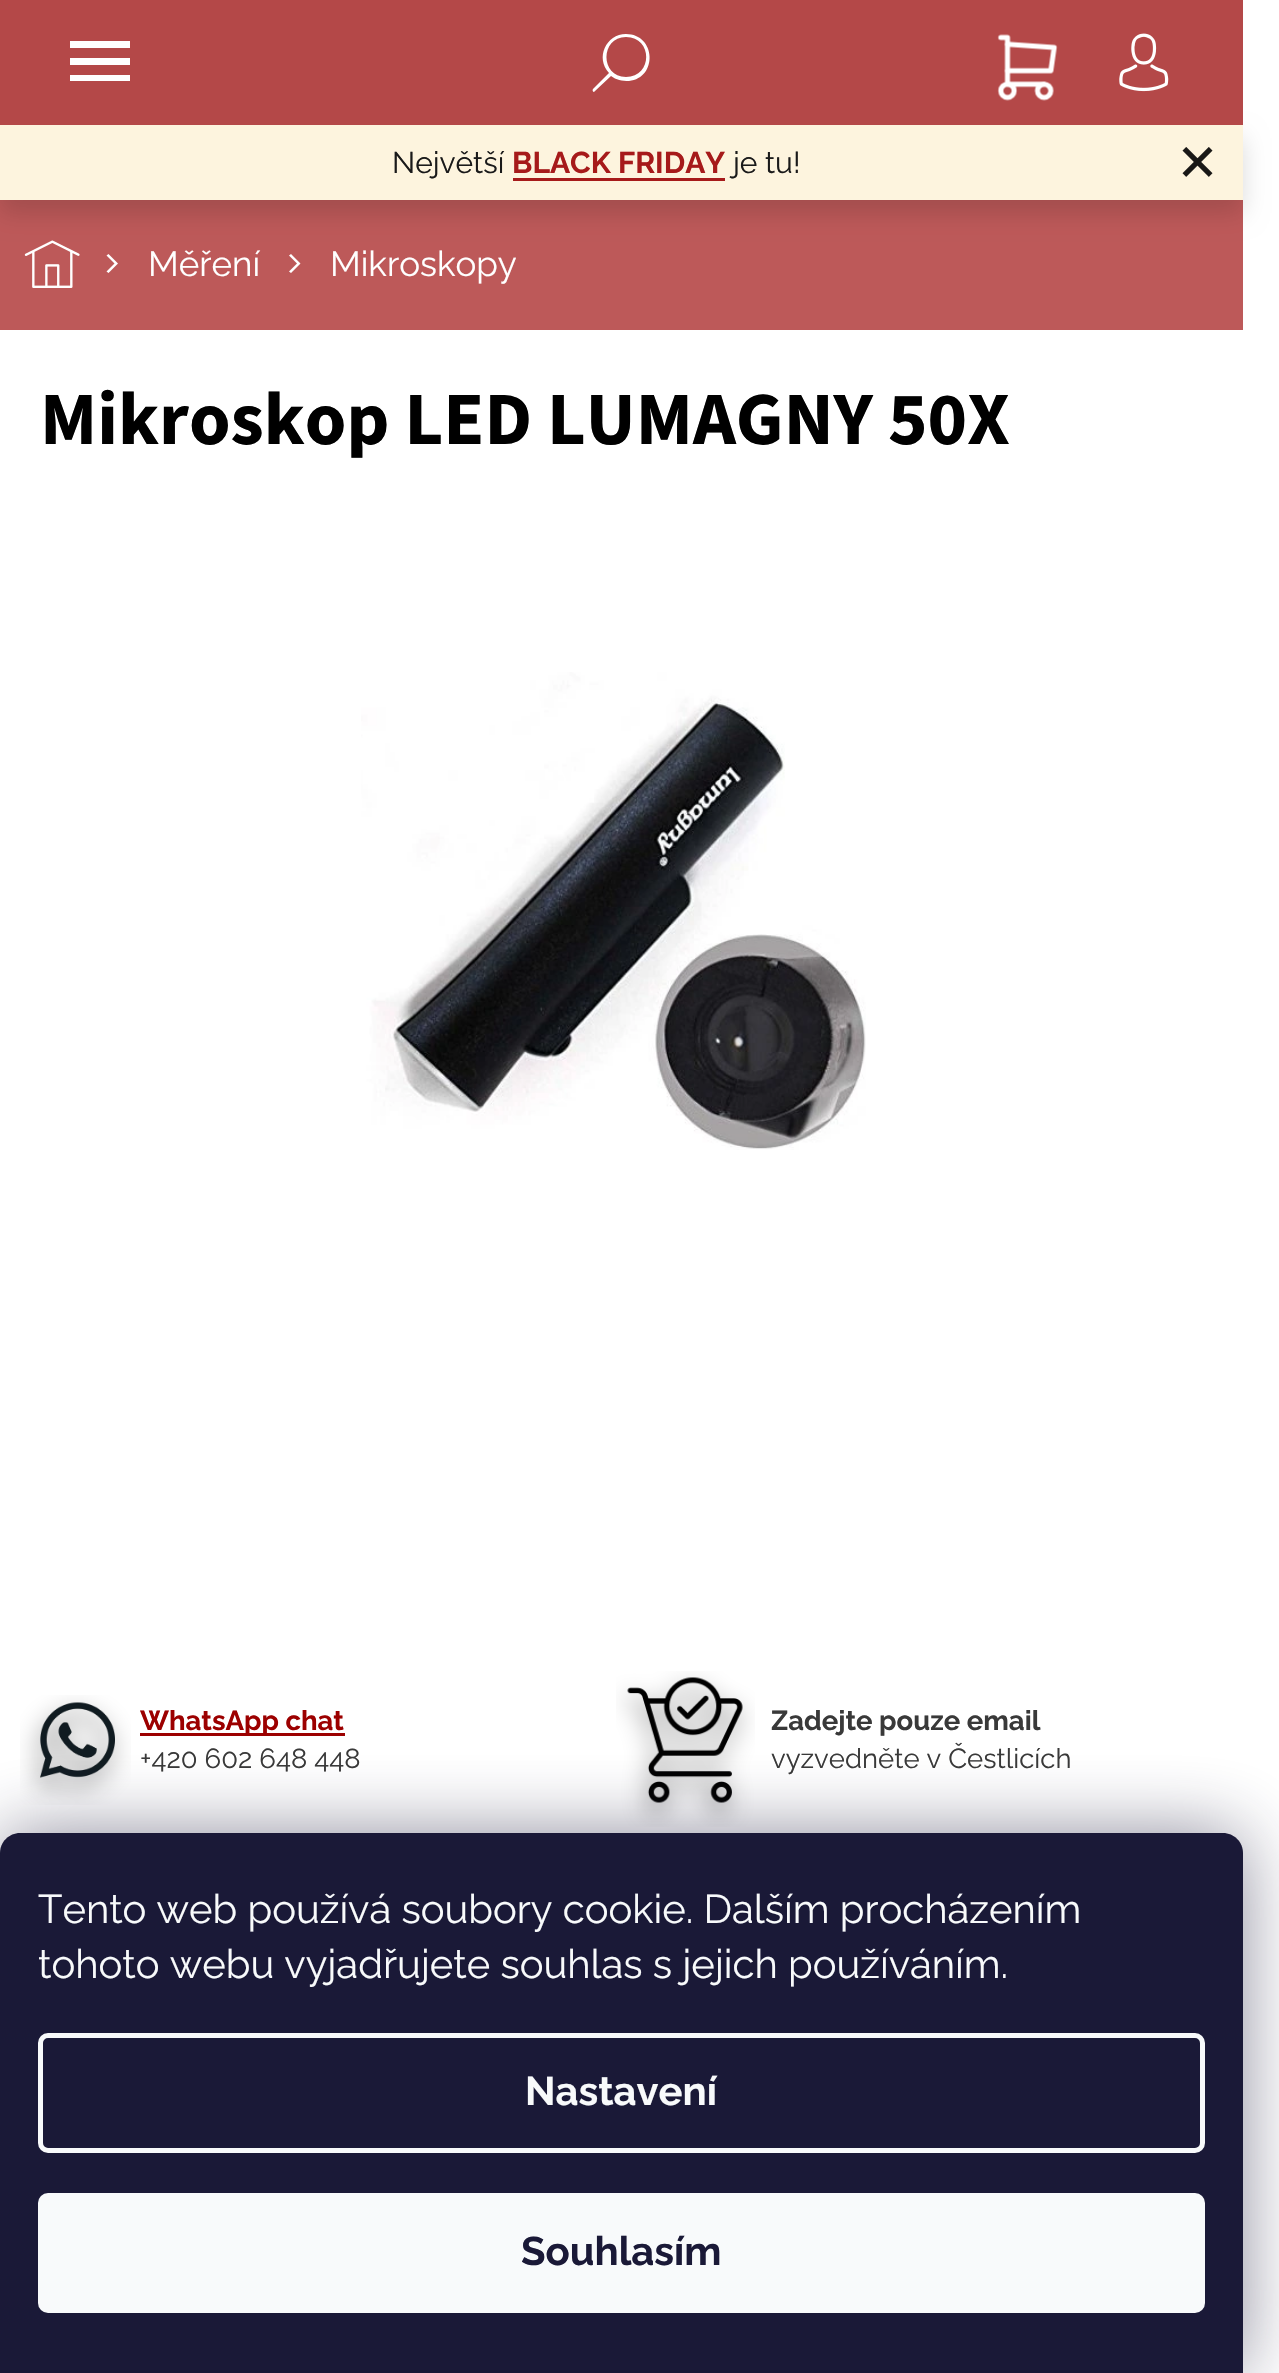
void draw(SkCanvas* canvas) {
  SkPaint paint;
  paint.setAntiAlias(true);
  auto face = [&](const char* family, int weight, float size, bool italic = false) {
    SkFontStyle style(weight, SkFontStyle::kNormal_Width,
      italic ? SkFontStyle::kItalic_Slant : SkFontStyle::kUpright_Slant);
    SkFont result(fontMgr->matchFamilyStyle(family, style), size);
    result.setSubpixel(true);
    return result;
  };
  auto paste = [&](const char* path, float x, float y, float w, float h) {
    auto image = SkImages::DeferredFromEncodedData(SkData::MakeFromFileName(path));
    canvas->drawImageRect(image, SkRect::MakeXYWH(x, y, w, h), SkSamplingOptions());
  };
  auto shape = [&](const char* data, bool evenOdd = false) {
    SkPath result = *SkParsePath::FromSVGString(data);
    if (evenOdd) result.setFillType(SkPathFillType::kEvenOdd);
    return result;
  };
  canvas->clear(0xffffffff);
  paint.setColor(0xffbd5959);
  canvas->drawRect(SkRect::MakeXYWH(0, 200, 1243, 130), paint);
  paint.setColor(0x24000000);
  paint.setMaskFilter(SkMaskFilter::MakeBlur(kNormal_SkBlurStyle, 12.5f));
  canvas->drawRect(SkRect::MakeXYWH(0, 138, 1243, 75), paint);
  paint.setMaskFilter(nullptr);
  paint.setColor(0xffb44848);
  canvas->drawRect(SkRect::MakeXYWH(0, 0, 1243, 125), paint);
  paint.setColor(0xffffffff);
  canvas->drawPath(shape("M70 81H130V75H70ZM70 65H130V58H70ZM70 41V48H130V41Z"), paint);
  canvas->drawPath(shape("M626 34C606 34 595 58 609 73L593 89C592 90 593 92 594 92L595 91L611 76C616 80 622 81 629 81C658 78 656 34 626 34ZM626 37C653 37 653 77 626 77C600 77 600 37 626 37Z"), paint);
  paste("img/1.png", 1119, 33, 50, 59);
  paste("img/2.png", 997, 34, 61, 67);
  paint.setColor(0xfffdf4de);
  canvas->drawRect(SkRect::MakeXYWH(0, 125, 1243, 75), paint);
  paint.setColor(0xffa61a1a);
  canvas->drawRect(SkRect::MakeXYWH(513, 178, 212, 3), paint);
  paste("img/3.png", 1182, 147, 31, 30);
  paste("img/4.png", 24, 240, 56, 48);
  paint.setColor(0xffffffff);
  canvas->drawPath(shape("M108.5 273L106.5 271.5L114.5 263.5L106.5 255.5L108.5 254L118 263.5Z"), paint);
  canvas->drawPath(shape("M291 273L289 271.5L297 263.5L289 255.5L291 254L300.5 263.5Z"), paint);
  paste("img/5.png", 361, 672, 505, 478);
  paste("img/6.png", 20, 1695, 111, 110);
  paint.setColor(0xff9c0000);
  canvas->drawRect(SkRect::MakeXYWH(140, 1733, 205, 3), paint);
  paste("img/7.png", 616, 1671, 139, 156);
  paint.setColor(0x801b1939);
  paint.setMaskFilter(SkMaskFilter::MakeBlur(kNormal_SkBlurStyle, 37.5f));
  canvas->drawRoundRect(SkRect::MakeXYWH(0, 1833, 1243, 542), 20, 20, paint);
  paint.setMaskFilter(nullptr);
  paint.setColor(0xff1a1937);
  canvas->drawPath(shape("M20 1833H1223C1234 1833 1243 1842 1243 1853V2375H0V1853C0 1842 9 1833 20 1833Z"), paint);
  paint.setStroke(true);
  paint.setStrokeWidth(5);
  paint.setColor(0xfff8fafb);
  canvas->drawRoundRect(SkRect::MakeXYWH(40.5f, 2035.5f, 1162, 115), 7.5f, 7.5f, paint);
  paint.setStroke(false);
  canvas->drawRoundRect(SkRect::MakeXYWH(38, 2193, 1167, 120), 10, 10, paint);
  auto f0 = face("Raleway", 400, 30);
  paint.setColor(0xff1a1a1a);
  canvas->drawString("Největší", 392, 173, f0, paint);
  auto f1 = face("Raleway", 700, 30);
  paint.setColor(0xffa61a1a);
  canvas->drawString("BLACK FRIDAY", 512, 173, f1, paint);
  paint.setColor(0xff1a1a1a);
  canvas->drawString("je tu!", 733, 173, f0, paint);
  auto f2 = face("Raleway", 400, 35);
  paint.setColor(0xffffffff);
  canvas->drawString("Měření", 148, 276, f2, paint);
  canvas->drawString("Mikroskopy", 330, 276, f2, paint);
  auto f3 = face("Source Sans 3", 700, 75);
  paint.setColor(0xff000000);
  canvas->drawString("Mikroskop LED LUMAGNY 50X", 40, 444, f3, paint);
  auto f4 = face("Raleway", 700, 27.5f);
  paint.setColor(0xff9c0000);
  canvas->drawString("WhatsApp chat", 140, 1730, f4, paint);
  auto f5 = face("Raleway", 400, 27.5f);
  paint.setColor(0xff393939);
  canvas->drawString("+420 602 648 448", 140, 1768, f5, paint);
  canvas->drawString("Zadejte pouze email", 771, 1730, f4, paint);
  canvas->drawString("vyzvedněte v Čestlicích", 771, 1768, f5, paint);
  auto f6 = face("Raleway", 400, 40);
  paint.setColor(0xfff8fafb);
  canvas->drawString("Tento web používá soubory cookie. Dalším procházením", 38, 1923, f6, paint);
  canvas->drawString("tohoto webu vyjadřujete souhlas s jejich používáním.", 38, 1978, f6, paint);
  auto f7 = face("Raleway", 700, 40);
  canvas->drawString("Nastavení", 525, 2105, f7, paint);
  paint.setColor(0xff1a1937);
  canvas->drawString("Souhlasím", 521, 2265, f7, paint);
}
